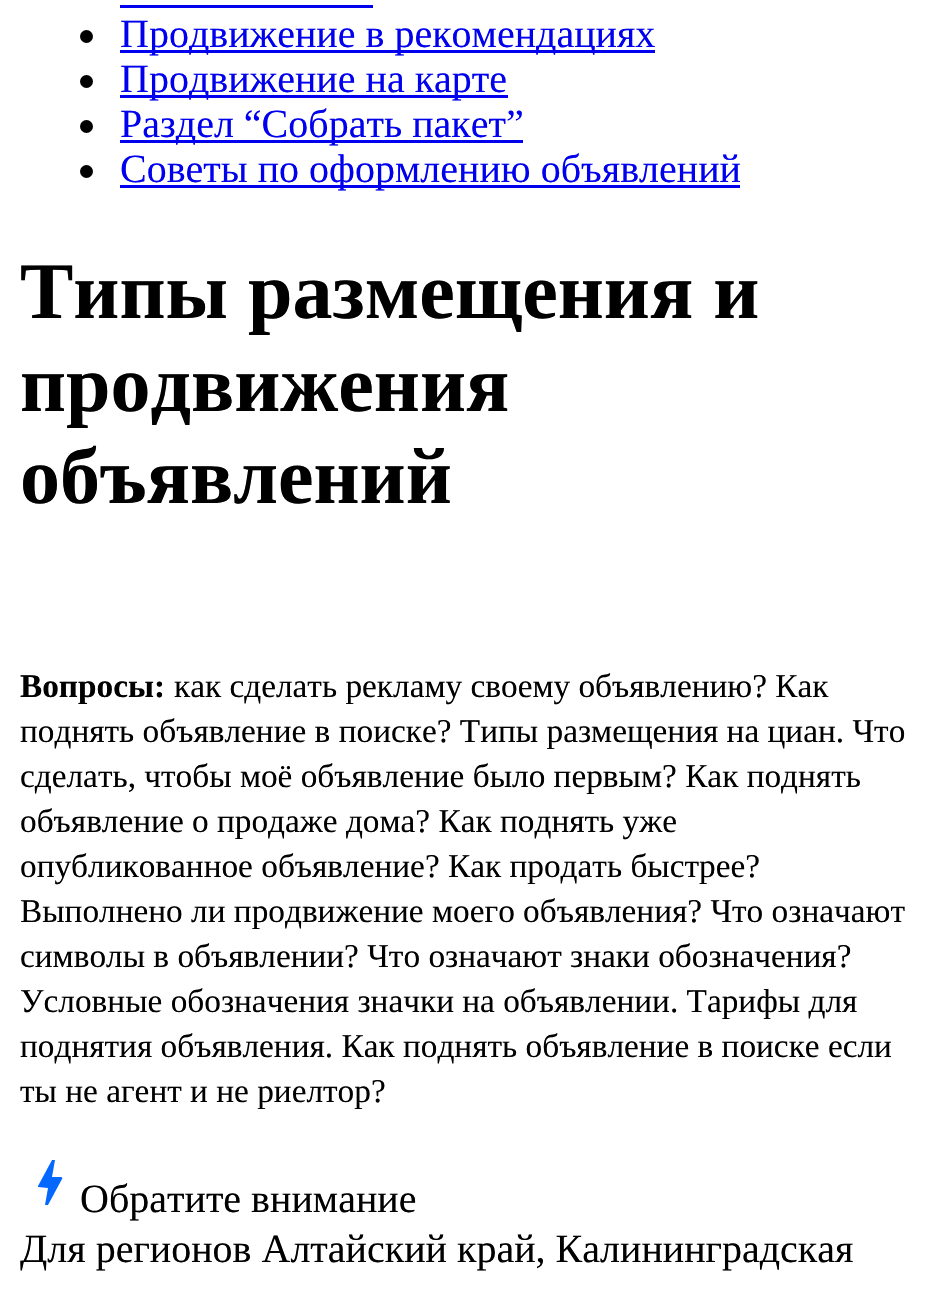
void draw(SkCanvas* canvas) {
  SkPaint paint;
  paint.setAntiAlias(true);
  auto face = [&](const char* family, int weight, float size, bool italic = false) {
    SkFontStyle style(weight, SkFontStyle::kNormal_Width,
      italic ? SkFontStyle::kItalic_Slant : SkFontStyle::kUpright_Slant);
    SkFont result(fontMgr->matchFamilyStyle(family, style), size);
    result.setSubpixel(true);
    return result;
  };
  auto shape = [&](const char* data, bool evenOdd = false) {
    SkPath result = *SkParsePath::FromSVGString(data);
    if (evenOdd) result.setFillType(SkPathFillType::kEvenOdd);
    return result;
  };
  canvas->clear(0xffffffff);
  paint.setColor(0xff0000ee);
  canvas->drawRect(SkRect::MakeXYWH(120, 5, 253, 3), paint);
  paint.setColor(0xff000000);
  canvas->drawCircle(86.5f, 36.5f, 6.5f, paint);
  paint.setColor(0xff0000ee);
  canvas->drawRect(SkRect::MakeXYWH(120, 50, 535, 3), paint);
  paint.setColor(0xff000000);
  canvas->drawCircle(86.5f, 81.5f, 6.5f, paint);
  paint.setColor(0xff0000ee);
  canvas->drawRect(SkRect::MakeXYWH(120, 95, 388, 3), paint);
  paint.setColor(0xff000000);
  canvas->drawCircle(86.5f, 126.5f, 6.5f, paint);
  paint.setColor(0xff0000ee);
  canvas->drawRect(SkRect::MakeXYWH(120, 140, 403, 3), paint);
  paint.setColor(0xff000000);
  canvas->drawCircle(86.5f, 171.5f, 6.5f, paint);
  paint.setColor(0xff0000ee);
  canvas->drawRect(SkRect::MakeXYWH(120, 185, 620, 3), paint);
  paint.setColor(0xff0468ff);
  canvas->drawPath(shape("M48 1205H45L48 1188L38 1187V1186L52 1160H55L52 1177H61C62 1177 63 1178 62 1179Z"), paint);
  auto f0 = face("Liberation Serif", 400, 40);
  paint.setColor(0xff0000ee);
  {
    const struct { const char* s; float x, y; } items[] = {
      {"Продвижение в рекомендациях", 120, 47},
      {"Продвижение на карте", 120, 92},
      {"Раздел “Собрать пакет”", 120, 137},
      {"Советы по оформлению объявлений", 120, 182},
    };
    for (auto [s, x, y] : items) {
      canvas->drawString(s, x, y, f0, paint);
    }
  }
  auto f1 = face("Liberation Serif", 700, 80);
  paint.setColor(0xff000000);
  {
    const struct { const char* s; float x, y; } items[] = {
      {"Типы размещения и", 20, 318},
      {"продвижения", 20, 411},
      {"объявлений", 20, 503},
    };
    for (auto [s, x, y] : items) {
      canvas->drawString(s, x, y, f1, paint);
    }
  }
  auto f2 = face("Liberation Serif", 700, 33.3f);
  canvas->drawString("Вопросы:", 20, 697, f2, paint);
  auto f3 = face("Liberation Serif", 400, 33.3f);
  {
    const struct { const char* s; float x, y; } items[] = {
      {"как сделать рекламу своему объявлению? Как", 174, 697},
      {"поднять объявление в поиске? Типы размещения на циан. Что", 20, 742},
      {"сделать, чтобы моё объявление было первым? Как поднять", 20, 787},
      {"объявление о продаже дома? Как поднять уже", 20, 832},
      {"опубликованное объявление? Как продать быстрее?", 20, 877},
      {"Выполнено ли продвижение моего объявления? Что означают", 20, 922},
      {"символы в объявлении? Что означают знаки обозначения?", 20, 967},
      {"Условные обозначения значки на объявлении. Тарифы для", 20, 1012},
      {"поднятия объявления. Как поднять объявление в поиске если", 20, 1057},
      {"ты не агент и не риелтор?", 20, 1102},
    };
    for (auto [s, x, y] : items) {
      canvas->drawString(s, x, y, f3, paint);
    }
  }
  canvas->drawString("Обратите внимание", 80, 1212, f0, paint);
  canvas->drawString("Для регионов Алтайский край, Калининградская", 20, 1262, f0, paint);
}
